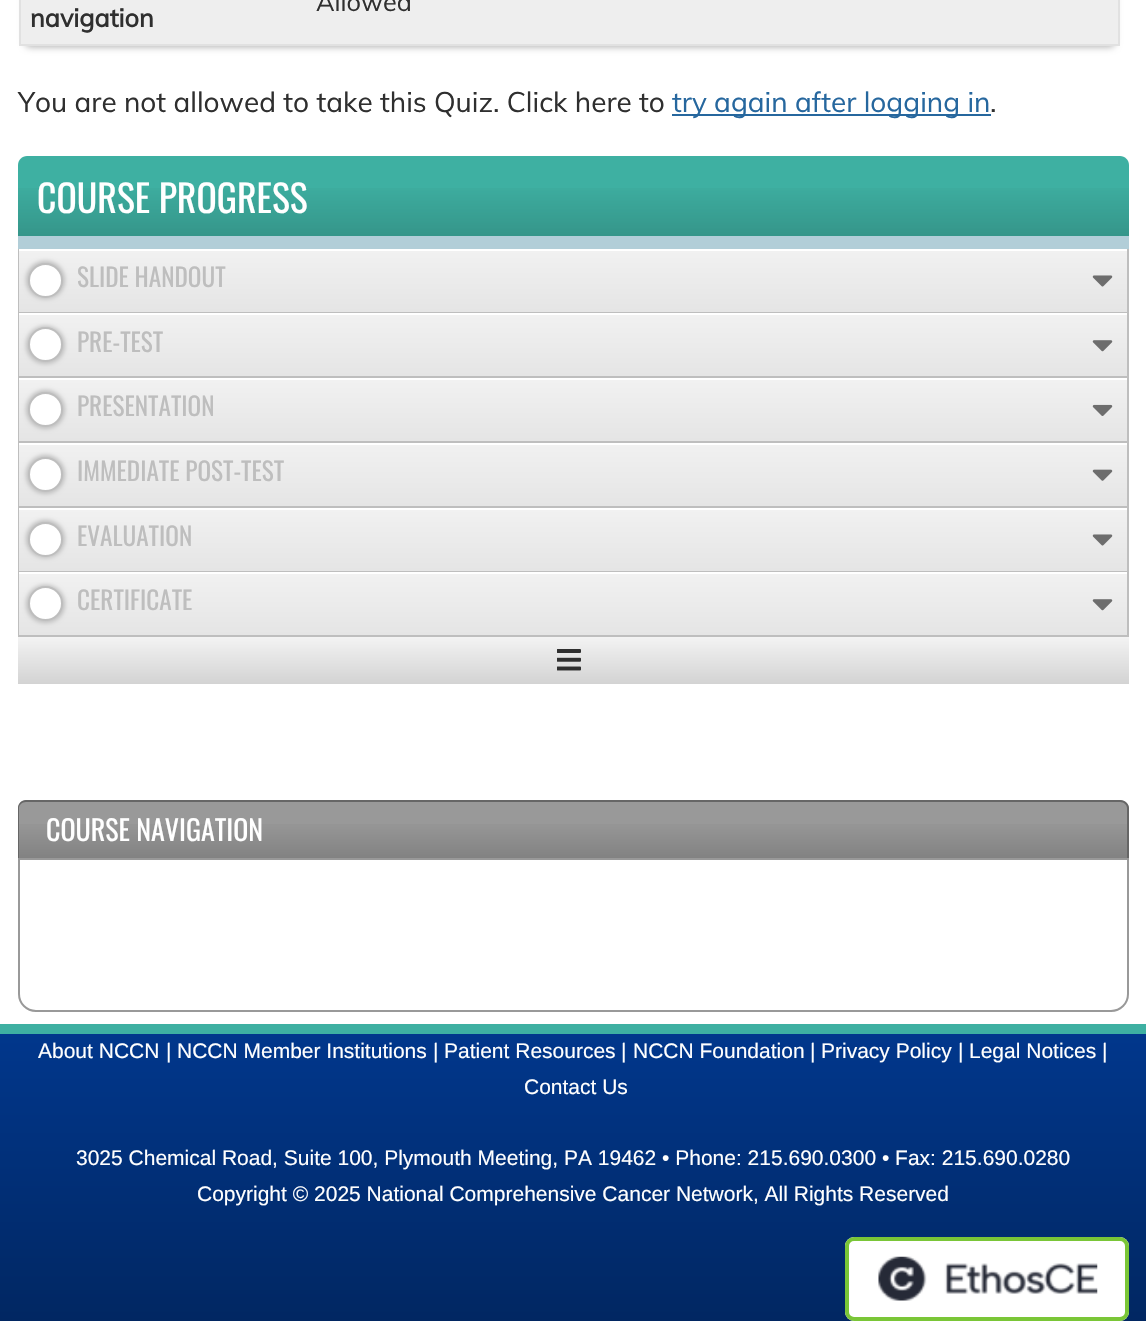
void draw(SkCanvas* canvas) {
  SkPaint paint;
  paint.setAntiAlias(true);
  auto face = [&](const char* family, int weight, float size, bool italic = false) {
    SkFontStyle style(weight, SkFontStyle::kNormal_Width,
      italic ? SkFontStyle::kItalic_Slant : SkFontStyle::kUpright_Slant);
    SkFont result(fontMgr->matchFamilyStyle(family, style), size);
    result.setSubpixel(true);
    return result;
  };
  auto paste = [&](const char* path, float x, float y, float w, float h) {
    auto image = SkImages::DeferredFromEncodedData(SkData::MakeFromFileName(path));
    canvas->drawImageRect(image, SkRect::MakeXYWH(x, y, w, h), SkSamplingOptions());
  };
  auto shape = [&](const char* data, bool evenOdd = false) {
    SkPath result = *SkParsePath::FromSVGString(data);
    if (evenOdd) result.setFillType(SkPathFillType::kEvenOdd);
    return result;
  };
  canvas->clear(0xffffffff);
  paint.setColor(0x4d000000);
  paint.setMaskFilter(SkMaskFilter::MakeBlur(kNormal_SkBlurStyle, 3.5f));
  canvas->drawRoundRect(SkRect::MakeXYWH(25, -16, 1090, 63), 5, 5, paint);
  paint.setMaskFilter(nullptr);
  {
    const struct { float x, y, w, h; SkColor color; } items[] = {
      {1118, 0, 2, 46, 0xffe1e1e1},
      {19, 44, 1101, 2, 0xffe1e1e1},
      {19, 0, 2, 46, 0xffe1e1e1},
      {21, 0, 1097, 44, 0xffeeeeee},
      {672, 114, 319, 2, 0xff26679e},
    };
    for (auto [x, y, w, h, color] : items) {
      paint.setColor(color);
      canvas->drawRect(SkRect::MakeXYWH(x, y, w, h), paint);
    }
  }
  paint.setColor(0xff3eb0a2);
  canvas->drawPath(shape("M27 156H1120C1125 156 1129 160 1129 165V249H18V165C18 160 22 156 27 156Z"), paint);
  {
    const SkColor colors[] = {0x26000000, 0x00000000};
    const float stops[] = {0, 0.7f};
    const SkPoint ends[] = {{573, 236}, {573, 156}};
    paint.setShader(SkGradientShader::MakeLinear(ends, colors, stops, 2, SkTileMode::kClamp));
    paint.setAlpha(255);
  }
  canvas->drawRect(SkRect::MakeXYWH(18, 188, 1111, 48), paint);
  paint.setShader(nullptr);
  {
    const struct { float x, y, w, h; SkColor color; } items[] = {
      {18, 236, 1111, 13, 0xffb2ced8},
      {1127, 249, 2, 388, 0xffbebebe},
      {18, 635, 1111, 2, 0xffbebebe},
      {18, 249, 2, 388, 0xffbebebe},
    };
    for (auto [x, y, w, h, color] : items) {
      paint.setColor(color);
      canvas->drawRect(SkRect::MakeXYWH(x, y, w, h), paint);
    }
  }
  {
    const SkColor colors[] = {0xfff1f1f1, 0xffe5e5e5};
    const float stops[] = {0, 1};
    const SkPoint ends[] = {{573, 250}, {573, 312}};
    paint.setShader(SkGradientShader::MakeLinear(ends, colors, stops, 2, SkTileMode::kClamp));
    paint.setAlpha(255);
  }
  canvas->drawRect(SkRect::MakeXYWH(19, 251, 1108, 61), paint);
  paint.setShader(nullptr);
  paint.setColor(0xffffffff);
  canvas->drawRect(SkRect::MakeXYWH(19, 249, 1, 2), paint);
  paint.setColor(0xffbebebe);
  canvas->drawRect(SkRect::MakeXYWH(19, 312, 1108, 1), paint);
  paint.setMaskFilter(SkMaskFilter::MakeBlur(kNormal_SkBlurStyle, 2));
  canvas->drawRoundRect(SkRect::MakeXYWH(26, 261, 39, 38), 19, 19, paint);
  paint.setMaskFilter(nullptr);
  paint.setColor(0xffffffff);
  canvas->drawCircle(45.5f, 280.5f, 16.5f, paint);
  paint.setStroke(true);
  paint.setStrokeWidth(2);
  paint.setColor(0xffbebebe);
  canvas->drawCircle(45.5f, 280.5f, 16.5f, paint);
  paste("img/1.png", 1092, 275, 21, 12);
  paint.setStroke(false);
  {
    const SkColor colors[] = {0xfff1f1f1, 0xffe5e5e5};
    const float stops[] = {0, 1};
    const SkPoint ends[] = {{573, 315}, {573, 376}};
    paint.setShader(SkGradientShader::MakeLinear(ends, colors, stops, 2, SkTileMode::kClamp));
    paint.setAlpha(255);
  }
  canvas->drawRect(SkRect::MakeXYWH(19, 315, 1108, 61), paint);
  paint.setShader(nullptr);
  paint.setColor(0xffffffff);
  canvas->drawRect(SkRect::MakeXYWH(19, 313, 1, 2), paint);
  paint.setColor(0xffbebebe);
  canvas->drawRect(SkRect::MakeXYWH(19, 376, 1108, 2), paint);
  paint.setMaskFilter(SkMaskFilter::MakeBlur(kNormal_SkBlurStyle, 2));
  canvas->drawRoundRect(SkRect::MakeXYWH(26, 326, 39, 38), 19, 19, paint);
  paint.setMaskFilter(nullptr);
  paint.setColor(0xffffffff);
  canvas->drawCircle(45.5f, 344.5f, 16.5f, paint);
  paint.setStroke(true);
  paint.setColor(0xffbebebe);
  canvas->drawCircle(45.5f, 344.5f, 16.5f, paint);
  paste("img/2.png", 1092, 340, 21, 12);
  paint.setStroke(false);
  {
    const SkColor colors[] = {0xfff1f1f1, 0xffe5e5e5};
    const float stops[] = {0, 1};
    const SkPoint ends[] = {{573, 380}, {573, 441}};
    paint.setShader(SkGradientShader::MakeLinear(ends, colors, stops, 2, SkTileMode::kClamp));
    paint.setAlpha(255);
  }
  canvas->drawRect(SkRect::MakeXYWH(19, 380, 1108, 61), paint);
  paint.setShader(nullptr);
  paint.setColor(0xffffffff);
  canvas->drawRect(SkRect::MakeXYWH(19, 378, 1, 2), paint);
  paint.setColor(0xffbebebe);
  canvas->drawRect(SkRect::MakeXYWH(19, 441, 1108, 2), paint);
  paint.setMaskFilter(SkMaskFilter::MakeBlur(kNormal_SkBlurStyle, 2));
  canvas->drawRoundRect(SkRect::MakeXYWH(26, 390, 39, 39), 19.5f, 19.5f, paint);
  paint.setMaskFilter(nullptr);
  paint.setColor(0xffffffff);
  canvas->drawCircle(45.5f, 409.5f, 16.5f, paint);
  paint.setStroke(true);
  paint.setColor(0xffbebebe);
  canvas->drawCircle(45.5f, 409.5f, 16.5f, paint);
  paste("img/3.png", 1092, 404, 21, 12);
  paint.setStroke(false);
  {
    const SkColor colors[] = {0xfff1f1f1, 0xffe5e5e5};
    const float stops[] = {0, 1};
    const SkPoint ends[] = {{573, 444}, {573, 506}};
    paint.setShader(SkGradientShader::MakeLinear(ends, colors, stops, 2, SkTileMode::kClamp));
    paint.setAlpha(255);
  }
  canvas->drawRect(SkRect::MakeXYWH(19, 445, 1108, 61), paint);
  paint.setShader(nullptr);
  paint.setColor(0xffffffff);
  canvas->drawRect(SkRect::MakeXYWH(19, 443, 1, 2), paint);
  paint.setColor(0xffbebebe);
  canvas->drawRect(SkRect::MakeXYWH(19, 506, 1108, 2), paint);
  paint.setMaskFilter(SkMaskFilter::MakeBlur(kNormal_SkBlurStyle, 2));
  canvas->drawRoundRect(SkRect::MakeXYWH(26, 455, 39, 39), 19.5f, 19.5f, paint);
  paint.setMaskFilter(nullptr);
  paint.setColor(0xffffffff);
  canvas->drawCircle(45.5f, 474.5f, 16.5f, paint);
  paint.setStroke(true);
  paint.setColor(0xffbebebe);
  canvas->drawCircle(45.5f, 474.5f, 16.5f, paint);
  paste("img/4.png", 1092, 469, 21, 12);
  paint.setStroke(false);
  {
    const SkColor colors[] = {0xfff1f1f1, 0xffe5e5e5};
    const float stops[] = {0, 1};
    const SkPoint ends[] = {{573, 509}, {573, 571}};
    paint.setShader(SkGradientShader::MakeLinear(ends, colors, stops, 2, SkTileMode::kClamp));
    paint.setAlpha(255);
  }
  canvas->drawRect(SkRect::MakeXYWH(19, 510, 1108, 61), paint);
  paint.setShader(nullptr);
  paint.setColor(0xffffffff);
  canvas->drawRect(SkRect::MakeXYWH(19, 508, 1, 2), paint);
  paint.setColor(0xffbebebe);
  canvas->drawRect(SkRect::MakeXYWH(19, 571, 1108, 1), paint);
  paint.setMaskFilter(SkMaskFilter::MakeBlur(kNormal_SkBlurStyle, 2));
  canvas->drawRoundRect(SkRect::MakeXYWH(26, 520, 39, 38), 19, 19, paint);
  paint.setMaskFilter(nullptr);
  paint.setColor(0xffffffff);
  canvas->drawCircle(45.5f, 539.5f, 16.5f, paint);
  paint.setStroke(true);
  paint.setColor(0xffbebebe);
  canvas->drawCircle(45.5f, 539.5f, 16.5f, paint);
  paste("img/1.png", 1092, 534, 21, 12);
  paint.setStroke(false);
  {
    const SkColor colors[] = {0xfff1f1f1, 0xffe5e5e5};
    const float stops[] = {0, 1};
    const SkPoint ends[] = {{573, 574}, {573, 635}};
    paint.setShader(SkGradientShader::MakeLinear(ends, colors, stops, 2, SkTileMode::kClamp));
    paint.setAlpha(255);
  }
  canvas->drawRect(SkRect::MakeXYWH(19, 574, 1108, 61), paint);
  paint.setShader(nullptr);
  paint.setColor(0xffffffff);
  canvas->drawRect(SkRect::MakeXYWH(19, 572, 1, 2), paint);
  paint.setColor(0xffbebebe);
  paint.setMaskFilter(SkMaskFilter::MakeBlur(kNormal_SkBlurStyle, 2));
  canvas->drawRoundRect(SkRect::MakeXYWH(26, 585, 39, 38), 19, 19, paint);
  paint.setMaskFilter(nullptr);
  paint.setColor(0xffffffff);
  canvas->drawCircle(45.5f, 603.5f, 16.5f, paint);
  paint.setStroke(true);
  paint.setColor(0xffbebebe);
  canvas->drawCircle(45.5f, 603.5f, 16.5f, paint);
  paste("img/2.png", 1092, 599, 21, 12);
  paint.setStroke(false);
  {
    const SkColor colors[] = {0xfff3f3f3, 0xffd3d3d3};
    const float stops[] = {0, 1};
    const SkPoint ends[] = {{573, 637}, {573, 684}};
    paint.setShader(SkGradientShader::MakeLinear(ends, colors, stops, 2, SkTileMode::kClamp));
    paint.setAlpha(255);
  }
  canvas->drawRect(SkRect::MakeXYWH(18, 637, 1111, 47), paint);
  paste("img/5.png", 557, 649, 24, 22);
  paint.setStroke(true);
  paint.setShader(nullptr);
  paint.setColor(0xff999999);
  canvas->drawPath(shape("M19 859H1128V994C1128 1003.5 1120.5 1011 1111 1011H36C26.5 1011 19 1003.5 19 994Z"), paint);
  paint.setStroke(false);
  canvas->drawPath(shape("M27 800H1120C1125 800 1129 804 1129 809V858H18V809C18 804 22 800 27 800Z"), paint);
  {
    const SkColor colors[] = {0x26000000, 0x00000000};
    const float stops[] = {0, 0.7f};
    const SkPoint ends[] = {{573, 858}, {573, 802}};
    paint.setShader(SkGradientShader::MakeLinear(ends, colors, stops, 2, SkTileMode::kClamp));
    paint.setAlpha(255);
  }
  canvas->drawRect(SkRect::MakeXYWH(19, 824, 1108, 34), paint);
  paint.setShader(nullptr);
  paint.setColor(0xff666666);
  canvas->drawPath(shape("M26 800H1120C1125 800 1129 804 1129 808V858H18V808C18 804 21 800 26 800ZM26 802H1120C1124 802 1127 805 1127 808V858H19V808C19 805 22 802 26 802Z", true), paint);
  {
    const SkColor colors[] = {0xff012762, 0xff01378c};
    const float stops[] = {0, 1};
    const SkPoint ends[] = {{573, 1321}, {573, 1034}};
    paint.setShader(SkGradientShader::MakeLinear(ends, colors, stops, 2, SkTileMode::kClamp));
    paint.setAlpha(255);
  }
  canvas->drawRect(SkRect::MakeXYWH(0, 1034, 1146, 287), paint);
  paint.setShader(nullptr);
  paint.setColor(0xff3eb0a2);
  canvas->drawRect(SkRect::MakeXYWH(0, 1024, 1146, 10), paint);
  paint.setColor(0xffffffff);
  canvas->drawRoundRect(SkRect::MakeXYWH(845, 1237, 284, 84), 9, 9, paint);
  paste("img/6.png", 878, 1256, 220, 45);
  paint.setStroke(true);
  paint.setStrokeWidth(4);
  paint.setColor(0xff7ac637);
  canvas->drawRoundRect(SkRect::MakeXYWH(847, 1239, 280, 80), 7, 7, paint);
  auto f0 = face("Muli", 400, 25.25f);
  paint.setStroke(false);
  paint.setColor(0xff2f2f2f);
  canvas->drawString("Allowed", 316, 11, f0, paint);
  auto f1 = face("Muli", 700, 25.25f);
  canvas->drawString("navigation", 30, 27, f1, paint);
  auto f2 = face("Muli", 400, 28);
  canvas->drawString("You are not allowed to take this Quiz. Click here to", 18, 112, f2, paint);
  paint.setColor(0xff26679e);
  canvas->drawString("try again after logging in", 672, 112, f2, paint);
  paint.setColor(0xff2f2f2f);
  canvas->drawString(".", 990, 112, f2, paint);
  auto f3 = face("Oswald", 400, 37.75f);
  paint.setColor(0xffffffff);
  canvas->drawString("COURSE PROGRESS", 37, 213, f3, paint);
  auto f4 = face("Oswald", 400, 25.25f);
  paint.setColor(0xffbebebe);
  {
    const struct { const char* s; float x, y; } items[] = {
      {"SLIDE HANDOUT", 77, 287},
      {"PRE-TEST", 77, 352},
      {"PRESENTATION", 77, 416},
      {"IMMEDIATE POST-TEST", 77, 481},
      {"EVALUATION", 77, 546},
      {"CERTIFICATE", 77, 610},
    };
    for (auto [s, x, y] : items) {
      canvas->drawString(s, x, y, f4, paint);
    }
  }
  auto f5 = face("Oswald", 400, 28);
  paint.setColor(0xffffffff);
  canvas->drawString("COURSE NAVIGATION", 46, 841, f5, paint);
  auto f6 = face("Liberation Sans", 400, 21);
  {
    const struct { const char* s; float x, y; } items[] = {
      {"About NCCN", 38, 1058},
      {"|", 166, 1058},
      {"NCCN Member Institutions", 177, 1058},
      {"|", 433, 1058},
      {"Patient Resources", 444, 1058},
      {"|", 621, 1058},
      {"NCCN Foundation", 633, 1058},
      {"|", 810, 1058},
      {"Privacy Policy", 821, 1058},
      {"|", 958, 1058},
      {"Legal Notices", 969, 1058},
      {"|", 1102, 1058},
      {"Contact Us", 524, 1094},
      {"3025 Chemical Road, Suite 100, Plymouth Meeting, PA 19462 • Phone: 215.690.0300 • Fax: 215.690.0280", 76, 1165},
      {"Copyright © 2025 National Comprehensive Cancer Network, All Rights Reserved", 197, 1201},
    };
    for (auto [s, x, y] : items) {
      canvas->drawString(s, x, y, f6, paint);
    }
  }
}
